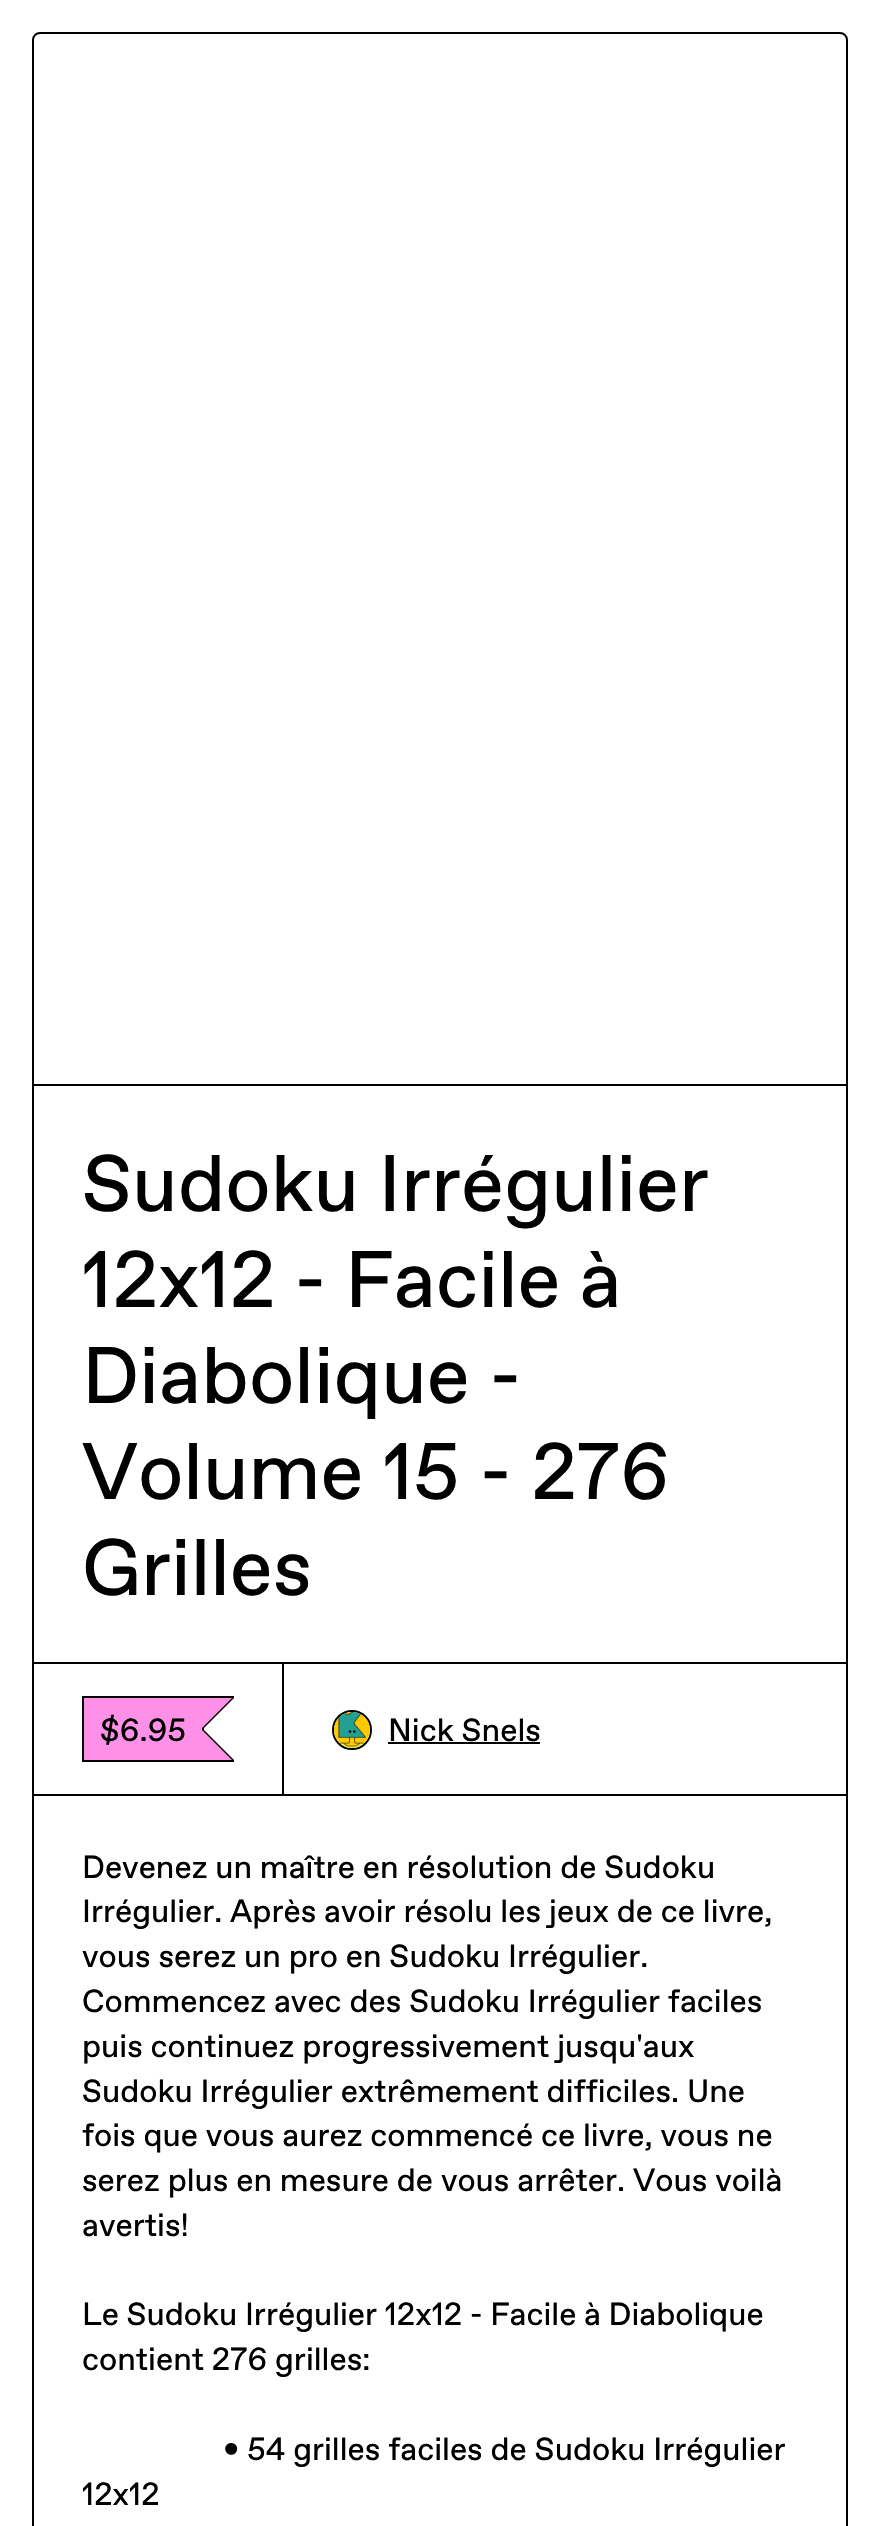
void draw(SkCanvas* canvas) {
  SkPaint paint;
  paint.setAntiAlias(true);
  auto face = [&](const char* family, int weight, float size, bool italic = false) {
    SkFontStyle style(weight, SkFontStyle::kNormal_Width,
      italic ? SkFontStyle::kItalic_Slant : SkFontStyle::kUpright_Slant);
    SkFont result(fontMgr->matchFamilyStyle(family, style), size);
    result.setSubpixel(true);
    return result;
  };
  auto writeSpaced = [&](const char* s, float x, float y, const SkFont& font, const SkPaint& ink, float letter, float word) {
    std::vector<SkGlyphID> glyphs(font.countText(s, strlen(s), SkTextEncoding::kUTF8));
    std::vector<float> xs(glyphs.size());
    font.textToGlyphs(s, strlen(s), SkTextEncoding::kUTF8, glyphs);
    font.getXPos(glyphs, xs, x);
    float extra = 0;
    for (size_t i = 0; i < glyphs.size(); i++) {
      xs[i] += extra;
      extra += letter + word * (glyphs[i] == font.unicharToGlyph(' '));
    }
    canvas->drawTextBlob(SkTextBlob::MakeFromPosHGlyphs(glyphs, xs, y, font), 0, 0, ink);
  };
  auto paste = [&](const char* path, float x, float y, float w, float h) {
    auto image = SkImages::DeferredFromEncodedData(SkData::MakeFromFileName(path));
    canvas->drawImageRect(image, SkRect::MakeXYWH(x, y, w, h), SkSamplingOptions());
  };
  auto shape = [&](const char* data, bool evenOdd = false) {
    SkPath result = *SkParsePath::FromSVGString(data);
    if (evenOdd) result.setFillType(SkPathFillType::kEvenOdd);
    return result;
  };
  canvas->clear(0xffffffff);
  paint.setStroke(true);
  paint.setStrokeWidth(2);
  paint.setColor(0xff000000);
  canvas->drawRoundRect(SkRect::MakeXYWH(33, 33, 814, 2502), 7, 7, paint);
  paint.setStroke(false);
  canvas->drawRect(SkRect::MakeXYWH(34, 1084, 812, 2), paint);
  canvas->drawRect(SkRect::MakeXYWH(284, 1662, 562, 2), paint);
  paint.setStroke(true);
  canvas->drawRect(SkRect::MakeXYWH(33, 1663, 250, 132), paint);
  paint.setStroke(false);
  {
    const struct { float x, y, w, h; SkColor color; } items[] = {
      {82, 1696, 152, 2, 0xff000000},
      {82, 1760, 152, 2, 0xff000000},
      {82, 1696, 2, 66, 0xff000000},
      {84, 1698, 118, 62, 0xffff90e8},
    };
    for (auto [x, y, w, h, color] : items) {
      paint.setColor(color);
      canvas->drawRect(SkRect::MakeXYWH(x, y, w, h), paint);
    }
  }
  paint.setColor(0xff000000);
  canvas->drawPath(shape("M202 1698H234L204 1728ZM234 1760H202L204 1730Z"), paint);
  canvas->drawRect(SkRect::MakeXYWH(202, 1726, 2, 6), paint);
  paint.setColor(0xffff90e8);
  canvas->drawPath(shape("M200 1698H232L202 1728ZM232 1760H200L202 1730Z"), paint);
  paint.setStroke(true);
  paint.setColor(0xff000000);
  canvas->drawCircle(352, 1730, 19, paint);
  paste("img/1.png", 334, 1712, 36, 36);
  paint.setStroke(false);
  canvas->drawRect(SkRect::MakeXYWH(388, 1742, 152, 2), paint);
  canvas->drawRect(SkRect::MakeXYWH(284, 1794, 562, 2), paint);
  auto f0 = face("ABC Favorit", 400, 80);
  canvas->drawString("Sudoku Irrégulier", 82, 1211, f0, paint);
  writeSpaced("12x12 - Facile à", 82, 1307, f0, paint, 0, -1);
  {
    const struct { const char* s; float x, y; } items[] = {
      {"Diabolique -", 82, 1403},
      {"Volume 15 - 276", 82, 1499},
      {"Grilles", 82, 1595},
    };
    for (auto [s, x, y] : items) {
      canvas->drawString(s, x, y, f0, paint);
    }
  }
  auto f1 = face("ABC Favorit", 400, 32);
  {
    const struct { const char* s; float x, y; } items[] = {
      {"$6.95", 100, 1741},
      {"Nick Snels", 388, 1741},
      {"Devenez un maître en résolution de Sudoku", 82, 1878},
      {"Irrégulier. Après avoir résolu les jeux de ce livre,", 82, 1922},
      {"vous serez un pro en Sudoku Irrégulier.", 82, 1967},
      {"Commencez avec des Sudoku Irrégulier faciles", 82, 2012},
      {"puis continuez progressivement jusqu'aux", 82, 2057},
      {"Sudoku Irrégulier extrêmement difficiles. Une", 82, 2102},
      {"fois que vous aurez commencé ce livre, vous ne", 82, 2146},
      {"serez plus en mesure de vous arrêter. Vous voilà", 82, 2191},
      {"avertis!", 82, 2236},
    };
    for (auto [s, x, y] : items) {
      canvas->drawString(s, x, y, f1, paint);
    }
  }
  writeSpaced("Le Sudoku Irrégulier 12x12 - Facile à Diabolique", 82, 2325, f1, paint, 0, -0.25f);
  {
    const struct { const char* s; float x, y; } items[] = {
      {"contient 276 grilles:", 82, 2370},
      {"• 54 grilles faciles de Sudoku Irrégulier", 223, 2460},
      {"12x12", 82, 2505},
    };
    for (auto [s, x, y] : items) {
      canvas->drawString(s, x, y, f1, paint);
    }
  }
}
